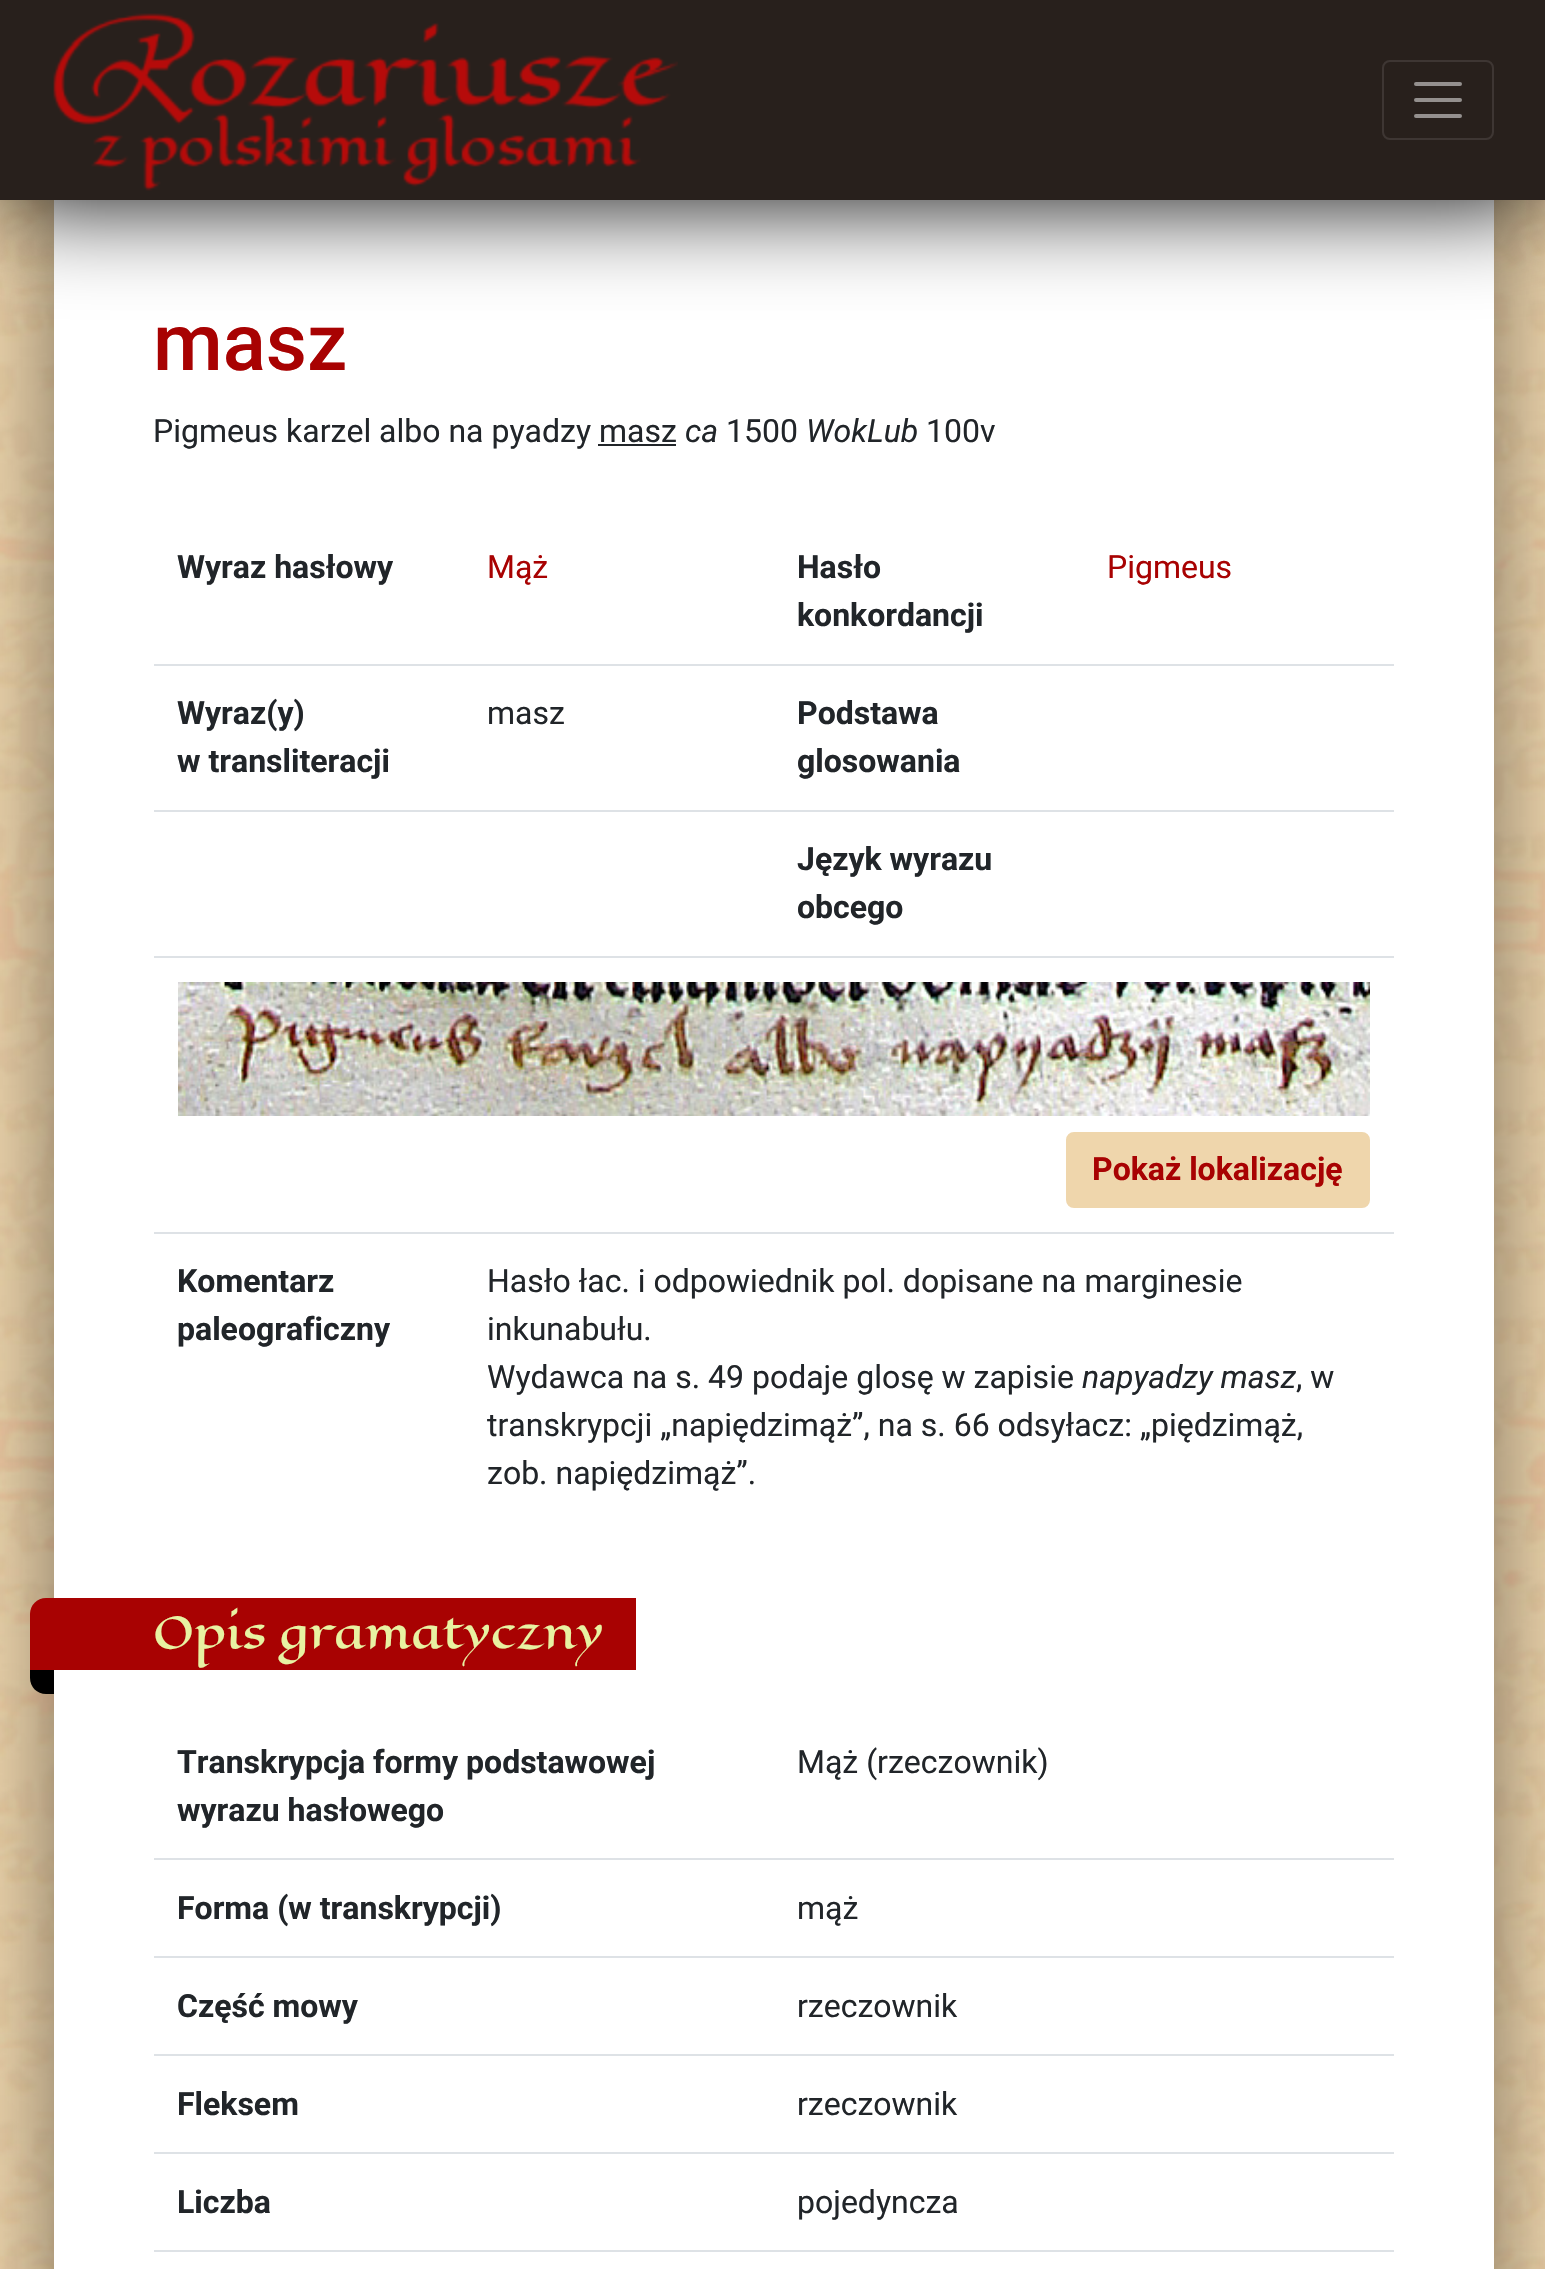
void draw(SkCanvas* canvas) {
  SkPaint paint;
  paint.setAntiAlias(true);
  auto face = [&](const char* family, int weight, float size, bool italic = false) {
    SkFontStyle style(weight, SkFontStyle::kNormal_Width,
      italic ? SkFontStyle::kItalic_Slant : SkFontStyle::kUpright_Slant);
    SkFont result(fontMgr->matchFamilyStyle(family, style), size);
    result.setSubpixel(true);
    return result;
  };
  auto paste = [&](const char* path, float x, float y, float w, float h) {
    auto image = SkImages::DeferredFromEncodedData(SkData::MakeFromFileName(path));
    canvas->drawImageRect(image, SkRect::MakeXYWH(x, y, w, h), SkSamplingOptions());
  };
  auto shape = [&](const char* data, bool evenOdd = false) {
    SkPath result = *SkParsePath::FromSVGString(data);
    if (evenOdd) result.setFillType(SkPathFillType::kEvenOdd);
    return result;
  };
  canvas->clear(0xffffffff);
  paste("img/1.png", 0, 200, 1545, 2069);
  paint.setColor(0x80000000);
  paint.setMaskFilter(SkMaskFilter::MakeBlur(kNormal_SkBlurStyle, 50));
  canvas->drawRect(SkRect::MakeXYWH(54, 200, 1440, 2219), paint);
  paint.setMaskFilter(nullptr);
  paint.setColor(0xffffffff);
  canvas->drawRect(SkRect::MakeXYWH(54, 200, 1440, 2069), paint);
  paint.setColor(0xff000000);
  paint.setMaskFilter(SkMaskFilter::MakeBlur(kNormal_SkBlurStyle, 50));
  canvas->drawRect(SkRect::MakeXYWH(0, 0, 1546, 200), paint);
  paint.setMaskFilter(nullptr);
  paint.setColor(0xff28201c);
  canvas->drawRect(SkRect::MakeXYWH(0, 0, 1545, 200), paint);
  paste("img/2.png", 53, 13, 625, 178);
  paint.setStroke(true);
  paint.setStrokeWidth(2);
  paint.setColor(0xff3e3633);
  canvas->drawRoundRect(SkRect::MakeXYWH(1383, 61, 110, 78), 7, 7, paint);
  paint.setStrokeWidth(4);
  paint.setStrokeCap(SkPaint::kRound_Cap);
  paint.setColor(0xff94908e);
  canvas->drawPath(shape("M1416 84H1460M1416 100H1460M1416 116H1460"), paint);
  paint.setStroke(false);
  {
    const struct { float x, y, w, h; SkColor color; } items[] = {
      {598, 444, 78, 2, 0xff212529},
      {154, 664, 1240, 2, 0xffdee2e6},
      {154, 810, 1240, 2, 0xffdee2e6},
      {154, 956, 1240, 2, 0xffdee2e6},
    };
    for (auto [x, y, w, h, color] : items) {
      paint.setColor(color);
      canvas->drawRect(SkRect::MakeXYWH(x, y, w, h), paint);
    }
  }
  paste("img/3.png", 178, 982, 1192, 134);
  paint.setColor(0xffefd6ac);
  canvas->drawRoundRect(SkRect::MakeXYWH(1067, 1133, 302, 74), 7, 7, paint);
  paint.setStroke(true);
  paint.setStrokeWidth(2);
  paint.setStrokeCap(SkPaint::kButt_Cap);
  canvas->drawRoundRect(SkRect::MakeXYWH(1067, 1133, 302, 74), 7, 7, paint);
  paint.setStroke(false);
  paint.setColor(0xffdee2e6);
  canvas->drawRect(SkRect::MakeXYWH(154, 1232, 1240, 2), paint);
  paint.setColor(0xffa80202);
  canvas->drawPath(shape("M46 1598H636V1670H30V1614C30 1605 37 1598 46 1598Z"), paint);
  paint.setColor(0xff000000);
  canvas->drawPath(shape("M30 1670H54V1694H46C37 1694 30 1687 30 1678Z"), paint);
  {
    const struct { float x, y, w, h; SkColor color; } items[] = {
      {154, 1858, 1240, 2, 0xffdee2e6},
      {154, 1956, 1240, 2, 0xffdee2e6},
      {154, 2054, 1240, 2, 0xffdee2e6},
      {154, 2152, 1240, 2, 0xffdee2e6},
      {154, 2250, 1240, 2, 0xffdee2e6},
    };
    for (auto [x, y, w, h, color] : items) {
      paint.setColor(color);
      canvas->drawRect(SkRect::MakeXYWH(x, y, w, h), paint);
    }
  }
  auto f0 = face("Roboto", 500, 80);
  paint.setColor(0xffa80202);
  canvas->drawString("masz", 153, 370, f0, paint);
  auto f1 = face("Roboto", 400, 32);
  paint.setColor(0xff212529);
  canvas->drawString("Pigmeus karzel albo na pyadzy masz", 153, 442, f1, paint);
  auto f2 = face("Roboto", 400, 32, true);
  canvas->drawString("ca", 685, 442, f2, paint);
  canvas->drawString("1500", 726, 442, f1, paint);
  canvas->drawString("WokLub", 806, 442, f2, paint);
  canvas->drawString("100v", 926, 442, f1, paint);
  auto f3 = face("Roboto", 700, 32);
  canvas->drawString("Wyraz hasłowy", 177, 578, f3, paint);
  paint.setColor(0xffa80202);
  canvas->drawString("Mąż", 487, 578, f1, paint);
  paint.setColor(0xff212529);
  canvas->drawString("Hasło", 797, 578, f3, paint);
  canvas->drawString("konkordancji", 797, 626, f3, paint);
  paint.setColor(0xffa80202);
  canvas->drawString("Pigmeus", 1107, 578, f1, paint);
  paint.setColor(0xff212529);
  canvas->drawString("Wyraz(y)", 177, 724, f3, paint);
  canvas->drawString("w transliteracji", 177, 772, f3, paint);
  canvas->drawString("masz", 487, 724, f1, paint);
  {
    const struct { const char* s; float x, y; } items[] = {
      {"Podstawa", 797, 724},
      {"glosowania", 797, 772},
      {"Język wyrazu", 797, 870},
      {"obcego", 797, 918},
    };
    for (auto [s, x, y] : items) {
      canvas->drawString(s, x, y, f3, paint);
    }
  }
  paint.setColor(0xffa80202);
  canvas->drawString("Pokaż lokalizację", 1092, 1180, f3, paint);
  paint.setColor(0xff212529);
  canvas->drawString("Komentarz", 177, 1292, f3, paint);
  canvas->drawString("paleograficzny", 177, 1340, f3, paint);
  {
    const struct { const char* s; float x, y; } items[] = {
      {"Hasło łac. i odpowiednik pol. dopisane na marginesie", 487, 1292},
      {"inkunabułu.", 487, 1340},
      {"Wydawca na s. 49 podaje glosę w zapisie", 487, 1388},
    };
    for (auto [s, x, y] : items) {
      canvas->drawString(s, x, y, f1, paint);
    }
  }
  canvas->drawString("napyadzy masz", 1082, 1388, f2, paint);
  {
    const struct { const char* s; float x, y; } items[] = {
      {", w", 1296, 1388},
      {"transkrypcji „napiędzimąż”, na s. 66 odsyłacz: „piędzimąż,", 487, 1436},
      {"zob. napiędzimąż”.", 487, 1484},
    };
    for (auto [s, x, y] : items) {
      canvas->drawString(s, x, y, f1, paint);
    }
  }
  auto f4 = face("Eagle Lake", 400, 44);
  paint.setColor(0xffe8f2a2);
  canvas->drawString("Opis gramatyczny", 153, 1648, f4, paint);
  paint.setColor(0xff212529);
  canvas->drawString("Transkrypcja formy podstawowej", 177, 1773, f3, paint);
  canvas->drawString("wyrazu hasłowego", 177, 1821, f3, paint);
  canvas->drawString("Mąż (rzeczownik)", 797, 1773, f1, paint);
  canvas->drawString("Forma (w transkrypcji)", 177, 1919, f3, paint);
  canvas->drawString("mąż", 797, 1919, f1, paint);
  canvas->drawString("Część mowy", 177, 2017, f3, paint);
  canvas->drawString("rzeczownik", 797, 2017, f1, paint);
  canvas->drawString("Fleksem", 177, 2115, f3, paint);
  canvas->drawString("rzeczownik", 797, 2115, f1, paint);
  canvas->drawString("Liczba", 177, 2213, f3, paint);
  canvas->drawString("pojedyncza", 797, 2213, f1, paint);
}
